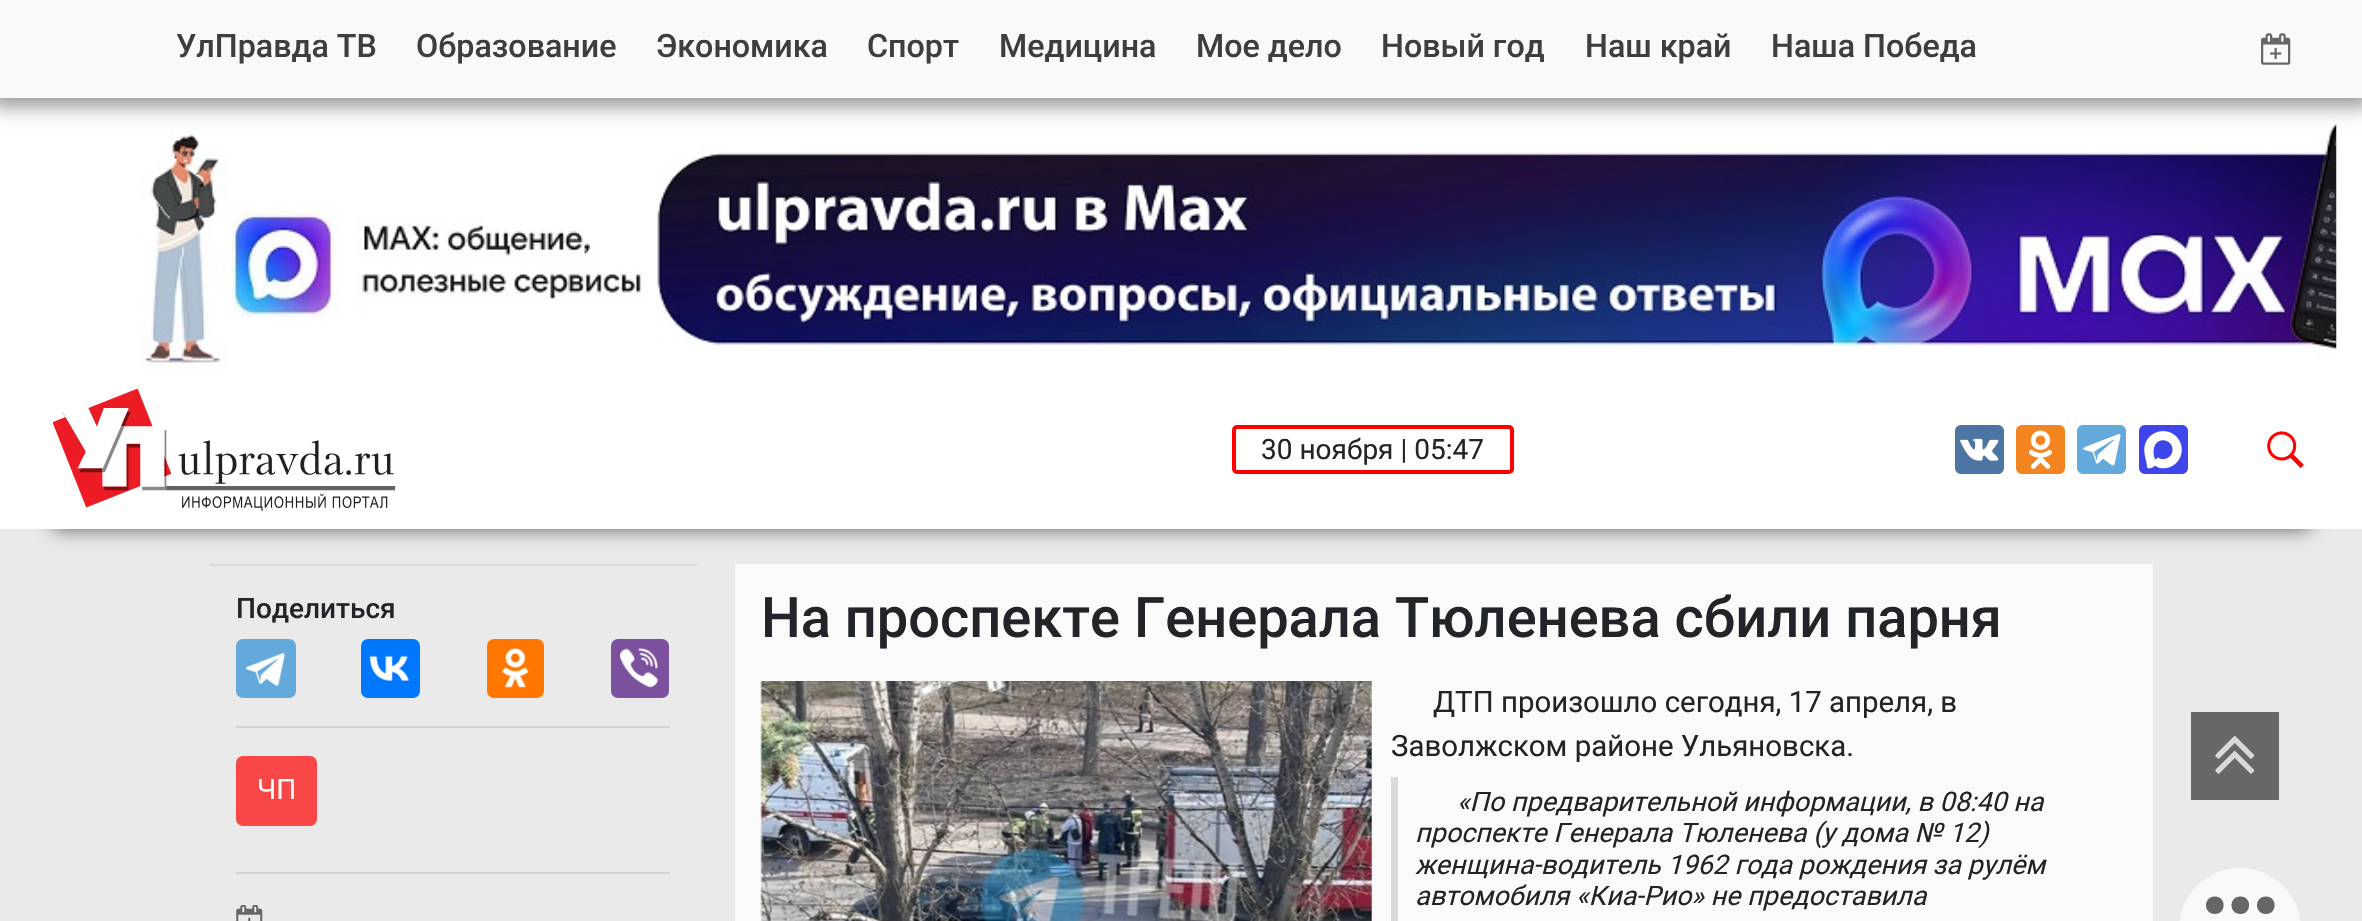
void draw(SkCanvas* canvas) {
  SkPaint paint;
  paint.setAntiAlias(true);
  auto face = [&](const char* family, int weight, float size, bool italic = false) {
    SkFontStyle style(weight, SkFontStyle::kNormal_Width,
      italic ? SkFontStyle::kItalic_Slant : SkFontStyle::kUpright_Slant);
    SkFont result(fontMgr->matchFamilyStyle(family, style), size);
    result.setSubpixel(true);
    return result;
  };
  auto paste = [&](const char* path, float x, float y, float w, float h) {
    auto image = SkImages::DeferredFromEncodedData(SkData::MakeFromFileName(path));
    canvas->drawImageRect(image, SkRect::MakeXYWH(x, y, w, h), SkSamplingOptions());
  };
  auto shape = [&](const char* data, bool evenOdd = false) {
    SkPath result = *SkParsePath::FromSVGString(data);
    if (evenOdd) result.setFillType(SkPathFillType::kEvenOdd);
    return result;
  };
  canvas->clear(0xffffffff);
  paste("img/2.png", 141, 116, 2196, 255);
  paint.setColor(0x66000000);
  paint.setMaskFilter(SkMaskFilter::MakeBlur(kNormal_SkBlurStyle, 9));
  canvas->drawRect(SkRect::MakeXYWH(-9, -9, 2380, 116), paint);
  paint.setMaskFilter(nullptr);
  paint.setColor(0xfff8f9fa);
  canvas->drawRect(SkRect::MakeXYWH(0, 0, 2362, 98), paint);
  paste("img/1.png", 2261, 33, 30, 32);
  paint.setColor(0xffeaeaea);
  canvas->drawRect(SkRect::MakeXYWH(0, 529, 2362, 392), paint);
  canvas->save();
  canvas->clipPath(shape("M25 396H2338V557H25ZM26 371H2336V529H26Z", true), true);
  paint.setColor(0x99000000);
  paint.setMaskFilter(SkMaskFilter::MakeBlur(kNormal_SkBlurStyle, 9));
  canvas->drawRect(SkRect::MakeXYWH(53, 424, 2257, 105), paint);
  paint.setMaskFilter(nullptr);
  canvas->restore();
  paste("img/3.png", 53, 389, 343, 122);
  paint.setStroke(true);
  paint.setStrokeWidth(4);
  paint.setColor(0xffff0000);
  canvas->drawRoundRect(SkRect::MakeXYWH(1234, 427, 278, 45), 3, 3, paint);
  paste("img/4.png", 1955, 425, 49, 49);
  paste("img/5.png", 2016, 425, 49, 49);
  paste("img/6.png", 2077, 425, 49, 49);
  paste("img/7.png", 2139, 425, 49, 49);
  paste("img/8.png", 2267, 431, 37, 37);
  paint.setStroke(false);
  paint.setColor(0xffdadada);
  canvas->drawRect(SkRect::MakeXYWH(210, 564, 487, 2), paint);
  paint.setColor(0xff64a9dc);
  canvas->drawRoundRect(SkRect::MakeXYWH(236, 639, 60, 59), 7, 7, paint);
  paste("img/9.png", 245, 652, 41, 34);
  paint.setColor(0xff0077ff);
  canvas->drawRoundRect(SkRect::MakeXYWH(361, 639, 59, 59), 7, 7, paint);
  paste("img/10.png", 369, 655, 41, 26);
  paint.setColor(0xffff7700);
  canvas->drawRoundRect(SkRect::MakeXYWH(487, 639, 57, 59), 7, 7, paint);
  paste("img/11.png", 502, 647, 27, 41);
  paint.setColor(0xff7b519d);
  canvas->drawRoundRect(SkRect::MakeXYWH(611, 639, 58, 59), 7, 7, paint);
  paste("img/12.png", 619, 647, 40, 41);
  paint.setColor(0xffd3d3d3);
  canvas->drawRect(SkRect::MakeXYWH(236, 726, 434, 2), paint);
  paint.setColor(0xfff94646);
  canvas->drawRoundRect(SkRect::MakeXYWH(236, 756, 81, 70), 7, 7, paint);
  paint.setColor(0xffd3d3d3);
  canvas->drawRect(SkRect::MakeXYWH(236, 872, 434, 2), paint);
  paste("img/13.png", 236, 905, 27, 16);
  paint.setColor(0xfffafafa);
  canvas->drawRect(SkRect::MakeXYWH(735, 564, 1418, 357), paint);
  paste("img/14.png", 760, 681, 612, 240);
  paint.setColor(0xffdadada);
  canvas->drawRect(SkRect::MakeXYWH(1391, 777, 7, 144), paint);
  paint.setColor(0xff676767);
  canvas->drawRect(SkRect::MakeXYWH(2191, 712, 88, 88), paint);
  paste("img/15.png", 2215, 736, 40, 38);
  paint.setColor(0xfff8f9fa);
  canvas->drawPath(shape("M2240 868C2273.5 868 2301 895.5 2301 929V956H2179V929C2179 895.5 2206.5 868 2240 868Z"), paint);
  paint.setColor(0xff666666);
  canvas->drawPath(shape("M2215 914C2203 914 2203 896.5 2215 896.5C2226.5 896.5 2226.5 914 2215 914ZM2240.5 914C2228.5 914 2228.5 896.5 2240.5 896.5C2252 896.5 2252 914 2240.5 914Z"), paint);
  canvas->drawPath(shape("M2266 914C2254 914 2254 896.5 2266 896.5C2277.5 896.5 2277.5 914 2266 914Z"), paint);
  auto f0 = face("Roboto", 500, 32.25f);
  paint.setColor(0xff3e3e3f);
  {
    const struct { const char* s; float x, y; } items[] = {
      {"УлПравда ТВ", 176, 57},
      {"Образование", 416, 57},
      {"Экономика", 656, 57},
      {"Спорт", 867, 57},
      {"Медицина", 999, 57},
      {"Мое дело", 1196, 57},
      {"Новый год", 1381, 57},
      {"Наш край", 1585, 57},
      {"Наша Победа", 1771, 57},
    };
    for (auto [s, x, y] : items) {
      canvas->drawString(s, x, y, f0, paint);
    }
  }
  auto f1 = face("Roboto", 400, 28);
  paint.setColor(0xff212529);
  canvas->drawString("30 ноября | 05:47", 1261, 459, f1, paint);
  auto f2 = face("Roboto", 500, 28);
  canvas->drawString("Поделиться", 236, 618, f2, paint);
  paint.setColor(0xffffffff);
  canvas->drawString("ЧП", 257, 799, f1, paint);
  auto f3 = face("Roboto", 500, 56);
  paint.setColor(0xff212529);
  canvas->drawString("На проспекте Генерала Тюленева сбили парня", 761, 637, f3, paint);
  auto f4 = face("Roboto", 400, 29.4f);
  paint.setColor(0xff232323);
  canvas->drawString("ДТП произошло сегодня, 17 апреля, в", 1433, 712, f4, paint);
  canvas->drawString("Заволжском районе Ульяновска.", 1391, 756, f4, paint);
  auto f5 = face("Roboto", 400, 26.9f, true);
  {
    const struct { const char* s; float x, y; } items[] = {
      {"«По предварительной информации, в 08:40 на", 1457, 811},
      {"проспекте Генерала Тюленева (у дома № 12)", 1415, 842},
      {"женщина-водитель 1962 года рождения за рулём", 1415, 874},
      {"автомобиля «Киа-Рио» не предоставила", 1415, 905},
    };
    for (auto [s, x, y] : items) {
      canvas->drawString(s, x, y, f5, paint);
    }
  }
}
